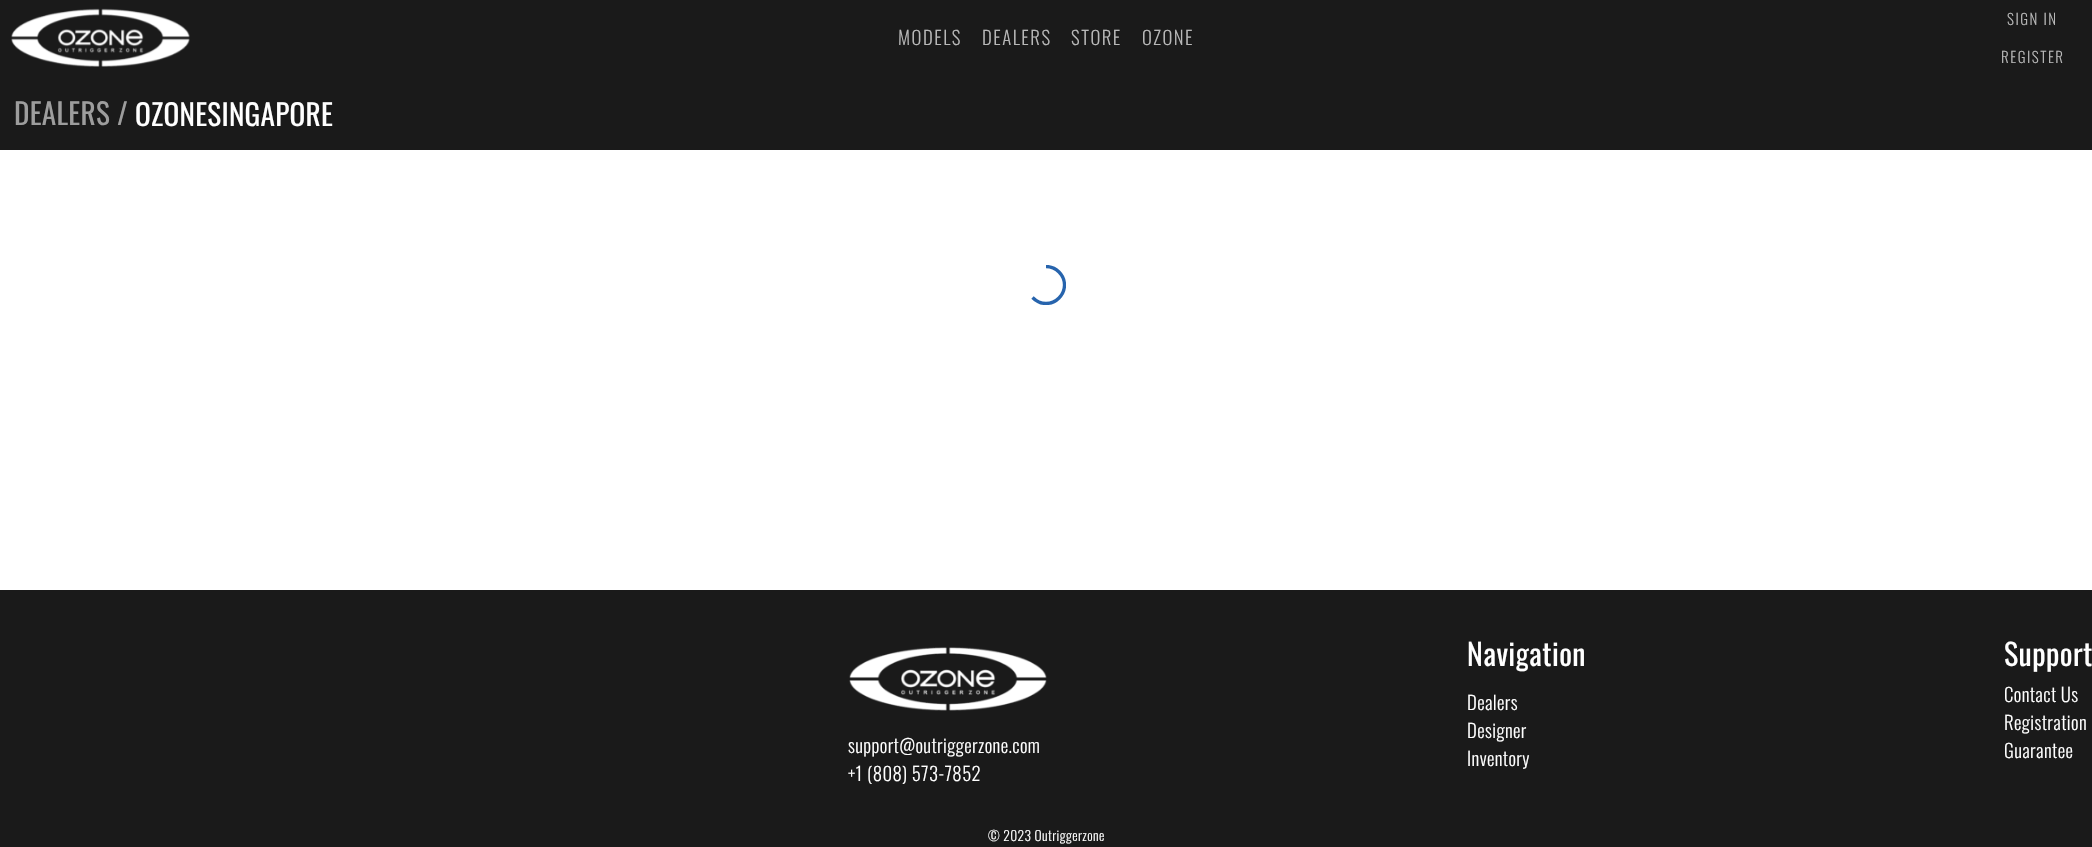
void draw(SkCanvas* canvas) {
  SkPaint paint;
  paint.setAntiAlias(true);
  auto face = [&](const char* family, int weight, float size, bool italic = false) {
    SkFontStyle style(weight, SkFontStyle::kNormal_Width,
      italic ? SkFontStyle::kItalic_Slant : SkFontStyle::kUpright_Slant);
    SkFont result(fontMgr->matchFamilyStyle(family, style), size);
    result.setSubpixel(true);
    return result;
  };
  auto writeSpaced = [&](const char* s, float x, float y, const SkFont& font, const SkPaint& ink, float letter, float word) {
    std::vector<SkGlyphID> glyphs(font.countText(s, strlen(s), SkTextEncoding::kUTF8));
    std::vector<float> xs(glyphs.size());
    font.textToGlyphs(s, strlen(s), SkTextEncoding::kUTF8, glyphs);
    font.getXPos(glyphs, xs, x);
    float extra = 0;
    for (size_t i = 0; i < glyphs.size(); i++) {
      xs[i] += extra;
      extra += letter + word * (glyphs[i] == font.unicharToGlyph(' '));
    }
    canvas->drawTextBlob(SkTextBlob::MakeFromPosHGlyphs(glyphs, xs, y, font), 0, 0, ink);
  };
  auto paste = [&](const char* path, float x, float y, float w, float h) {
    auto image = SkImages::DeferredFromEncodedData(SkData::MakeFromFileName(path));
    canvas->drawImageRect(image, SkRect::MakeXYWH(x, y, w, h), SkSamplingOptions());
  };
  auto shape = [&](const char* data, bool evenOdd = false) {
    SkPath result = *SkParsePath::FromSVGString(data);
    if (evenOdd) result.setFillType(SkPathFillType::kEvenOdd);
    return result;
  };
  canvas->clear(0xffffffff);
  paint.setColor(0xff1a1a1a);
  canvas->drawRect(SkRect::MakeXYWH(0, 0, 2092, 150), paint);
  paste("img/1.png", 11, 8, 179, 59);
  canvas->save();
  canvas->clipRect(SkRect::MakeXYWH(1026, 265, 40, 40));
  paint.setStroke(true);
  paint.setStrokeWidth(3.3f);
  paint.setColor(0xff2764ad);
  canvas->drawPath(shape("M1046 266.5C1056 266.5 1064.5 275 1064.5 285C1064.5 295 1056 303.5 1046 303.5C1040.5 303.5 1036 301 1032.5 297.5"), paint);
  canvas->restore();
  paint.setStroke(false);
  paint.setColor(0xff1a1a1a);
  canvas->drawRect(SkRect::MakeXYWH(0, 590, 2092, 257), paint);
  paste("img/2.png", 849, 647, 198, 64);
  auto f0 = face("Oswald", 300, 18.75f);
  paint.setColor(0xffb8b8b8);
  {
    const struct { const char* s; float x, y; } items[] = {
      {"MODELS", 898, 45},
      {"DEALERS", 982, 45},
      {"STORE", 1071, 45},
      {"OZONE", 1142, 45},
    };
    for (auto [s, x, y] : items) {
      writeSpaced(s, x, y, f0, paint, 1.5f, 0);
    }
  }
  auto f1 = face("Oswald", 300, 15);
  writeSpaced("SIGN IN", 2007, 25, f1, paint, 1.5f, 0);
  writeSpaced("REGISTER", 2001, 63, f1, paint, 1.5f, 0);
  auto f2 = face("Oswald", 400, 29.25f);
  paint.setColor(0xff9d9d9d);
  writeSpaced("DEALERS /", 14, 125, f2, paint, 0.25f, 0);
  paint.setColor(0xffffffff);
  writeSpaced("OZONESINGAPORE", 135, 126, f2, paint, 0.25f, 0);
  writeSpaced("support@outriggerzone.com", 848, 753, f0, paint, 0.4f, 0);
  writeSpaced("+1 (808) 573-7852", 848, 781, f0, paint, 0.4f, 0);
  auto f3 = face("Oswald", 400, 30);
  writeSpaced("Navigation", 1467, 666, f3, paint, 0.4f, 0);
  {
    const struct { const char* s; float x, y; } items[] = {
      {"Dealers", 1467, 710},
      {"Designer", 1467, 738},
      {"Inventory", 1467, 766},
    };
    for (auto [s, x, y] : items) {
      writeSpaced(s, x, y, f0, paint, 0.4f, 0);
    }
  }
  writeSpaced("Support", 2004, 666, f3, paint, 0.4f, 0);
  {
    const struct { const char* s; float x, y; } items[] = {
      {"Contact Us", 2004, 702},
      {"Registration", 2004, 730},
      {"Guarantee", 2004, 758},
    };
    for (auto [s, x, y] : items) {
      writeSpaced(s, x, y, f0, paint, 0.4f, 0);
    }
  }
  auto f4 = face("Oswald", 300, 13.5f);
  writeSpaced("© 2023 Outriggerzone", 988, 841, f4, paint, 0.4f, 0);
}
